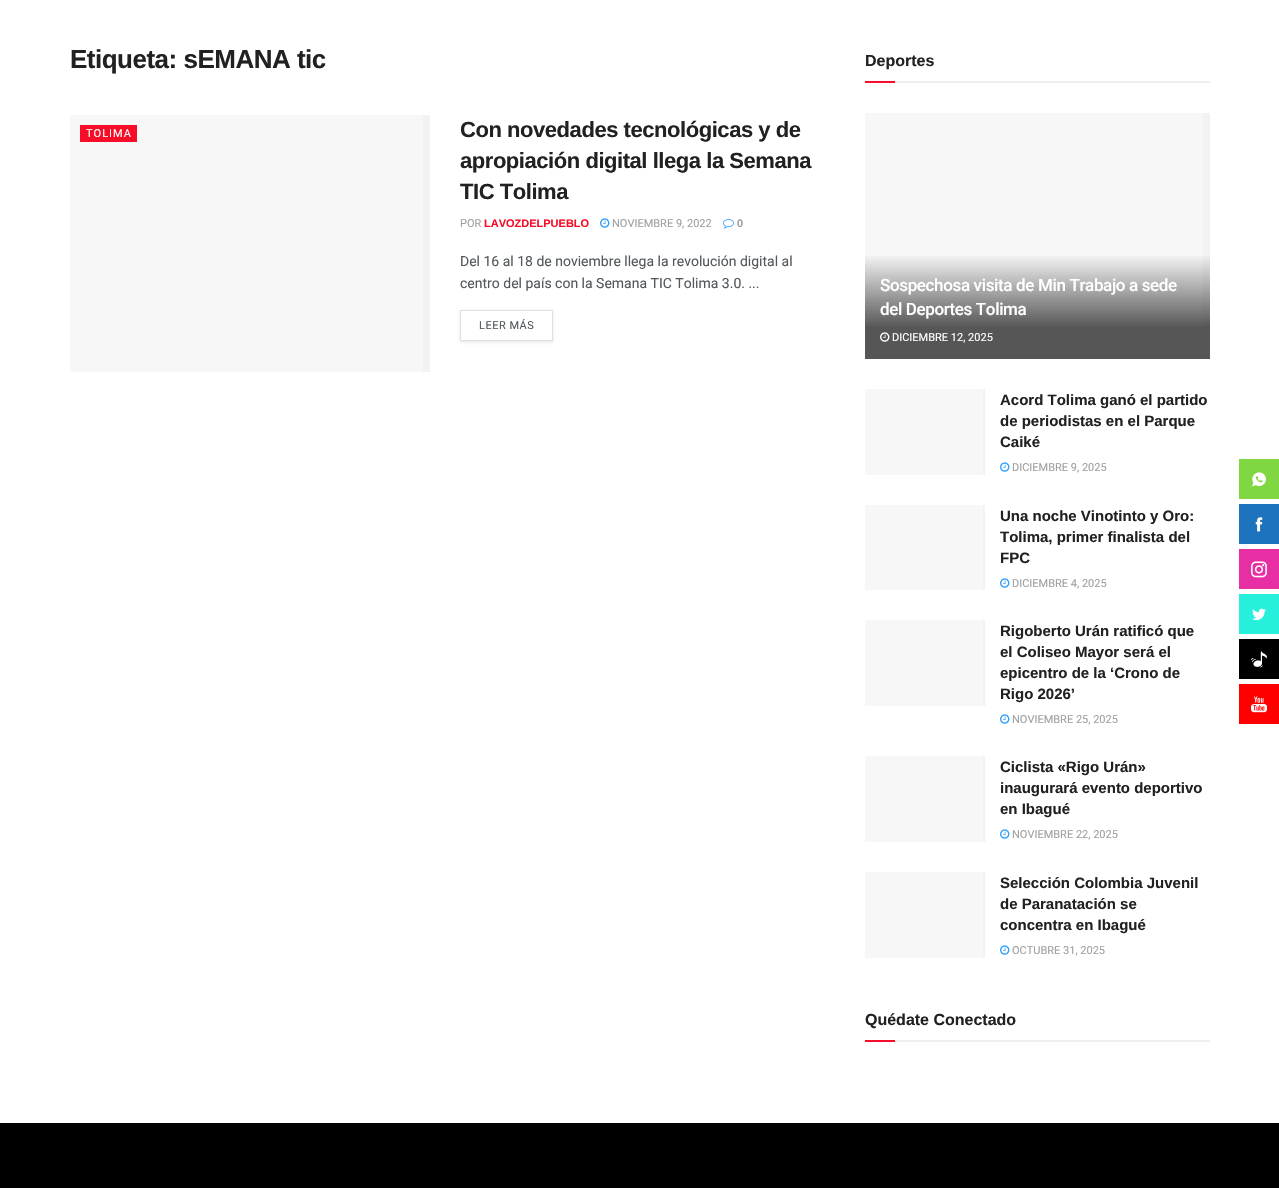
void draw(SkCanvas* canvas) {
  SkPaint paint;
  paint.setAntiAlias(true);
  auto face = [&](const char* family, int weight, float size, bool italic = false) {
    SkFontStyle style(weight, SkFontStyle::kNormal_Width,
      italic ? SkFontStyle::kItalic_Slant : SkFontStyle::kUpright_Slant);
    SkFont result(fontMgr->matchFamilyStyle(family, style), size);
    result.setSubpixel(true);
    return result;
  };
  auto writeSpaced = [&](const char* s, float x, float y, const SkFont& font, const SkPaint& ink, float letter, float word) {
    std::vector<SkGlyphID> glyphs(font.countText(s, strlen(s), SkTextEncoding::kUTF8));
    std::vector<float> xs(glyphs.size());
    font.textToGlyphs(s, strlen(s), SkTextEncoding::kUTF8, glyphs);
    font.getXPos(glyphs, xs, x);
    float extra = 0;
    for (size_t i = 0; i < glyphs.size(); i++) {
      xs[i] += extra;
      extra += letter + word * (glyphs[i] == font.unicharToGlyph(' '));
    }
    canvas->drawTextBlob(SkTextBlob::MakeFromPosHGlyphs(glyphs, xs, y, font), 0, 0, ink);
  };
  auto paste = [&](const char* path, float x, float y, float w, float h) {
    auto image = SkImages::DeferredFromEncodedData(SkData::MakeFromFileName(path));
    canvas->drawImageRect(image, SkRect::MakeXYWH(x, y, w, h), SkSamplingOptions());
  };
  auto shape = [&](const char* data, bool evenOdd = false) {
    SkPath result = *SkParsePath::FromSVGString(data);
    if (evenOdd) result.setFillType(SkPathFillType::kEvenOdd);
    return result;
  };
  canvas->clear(0xffffffff);
  {
    const struct { float x, y, w, h; SkColor color; } items[] = {
      {70, 115, 353, 257, 0xfff7f7f7},
      {423, 115, 7, 257, 0xfff2f2f2},
      {80, 125, 57, 17, 0xfff70d28},
    };
    for (auto [x, y, w, h, color] : items) {
      paint.setColor(color);
      canvas->drawRect(SkRect::MakeXYWH(x, y, w, h), paint);
    }
  }
  paste("img/1.png", 600, 218, 10, 10);
  paste("img/2.png", 723, 219, 11, 10);
  canvas->save();
  canvas->clipPath(shape("M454 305H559V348H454ZM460 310H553V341H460Z", true), true);
  paint.setColor(0x1a000000);
  paint.setMaskFilter(SkMaskFilter::MakeBlur(kNormal_SkBlurStyle, 1.5f));
  canvas->drawRect(SkRect::MakeXYWH(460, 311, 93, 31), paint);
  paint.setMaskFilter(nullptr);
  canvas->restore();
  paint.setStroke(true);
  paint.setStrokeWidth(1);
  paint.setColor(0xffe0e0e0);
  canvas->drawRect(SkRect::MakeXYWH(460.5f, 310.5f, 92, 30), paint);
  paint.setStroke(false);
  {
    const struct { float x, y, w, h; SkColor color; } items[] = {
      {895, 81, 315, 2, 0xffeeeeee},
      {865, 81, 30, 2, 0xfff70d28},
      {865, 113, 338, 246, 0xfff7f7f7},
      {1203, 113, 7, 246, 0xfff2f2f2},
    };
    for (auto [x, y, w, h, color] : items) {
      paint.setColor(color);
      canvas->drawRect(SkRect::MakeXYWH(x, y, w, h), paint);
    }
  }
  {
    const SkColor colors[] = {0x00000000, 0xa6000000};
    const float stops[] = {0, 0.7f};
    const SkPoint ends[] = {{1038, 254}, {1038, 359}};
    paint.setShader(SkGradientShader::MakeLinear(ends, colors, stops, 2, SkTileMode::kClamp));
    paint.setAlpha(255);
  }
  canvas->drawRect(SkRect::MakeXYWH(865, 256, 345, 103), paint);
  paste("img/3.png", 880, 332, 10, 10);
  paint.setShader(nullptr);
  paint.setColor(0xfff7f7f7);
  canvas->drawRect(SkRect::MakeXYWH(865, 389, 118, 86), paint);
  paint.setColor(0xfff2f2f2);
  canvas->drawRect(SkRect::MakeXYWH(983, 389, 2, 86), paint);
  paste("img/1.png", 1000, 462, 10, 10);
  paint.setColor(0xfff7f7f7);
  canvas->drawRect(SkRect::MakeXYWH(865, 505, 118, 85), paint);
  paint.setColor(0xfff2f2f2);
  canvas->drawRect(SkRect::MakeXYWH(983, 505, 2, 85), paint);
  paste("img/1.png", 1000, 578, 10, 10);
  paint.setColor(0xfff7f7f7);
  canvas->drawRect(SkRect::MakeXYWH(865, 620, 118, 86), paint);
  paint.setColor(0xfff2f2f2);
  canvas->drawRect(SkRect::MakeXYWH(983, 620, 2, 86), paint);
  paste("img/1.png", 1000, 714, 10, 10);
  paint.setColor(0xfff7f7f7);
  canvas->drawRect(SkRect::MakeXYWH(865, 756, 118, 86), paint);
  paint.setColor(0xfff2f2f2);
  canvas->drawRect(SkRect::MakeXYWH(983, 756, 2, 86), paint);
  paste("img/1.png", 1000, 829, 10, 10);
  paint.setColor(0xfff7f7f7);
  canvas->drawRect(SkRect::MakeXYWH(865, 872, 118, 86), paint);
  paint.setColor(0xfff2f2f2);
  canvas->drawRect(SkRect::MakeXYWH(983, 872, 2, 86), paint);
  paste("img/1.png", 1000, 945, 10, 10);
  {
    const struct { float x, y, w, h; SkColor color; } items[] = {
      {895, 1040, 315, 2, 0xffeeeeee},
      {865, 1040, 30, 2, 0xfff70d28},
      {1239, 459, 40, 40, 0xff81d742},
    };
    for (auto [x, y, w, h, color] : items) {
      paint.setColor(color);
      canvas->drawRect(SkRect::MakeXYWH(x, y, w, h), paint);
    }
  }
  paste("img/4.png", 1252, 472, 14, 15);
  paint.setColor(0xff1e73be);
  canvas->drawRect(SkRect::MakeXYWH(1239, 504, 40, 40), paint);
  paste("img/5.png", 1255, 517, 8, 15);
  paint.setColor(0xffe82ea3);
  canvas->drawRect(SkRect::MakeXYWH(1239, 549, 40, 40), paint);
  paste("img/6.png", 1251, 561, 16, 17);
  paint.setColor(0xff26efdb);
  canvas->drawRect(SkRect::MakeXYWH(1239, 594, 40, 40), paint);
  paste("img/7.png", 1252, 608, 14, 13);
  paint.setColor(0xff000000);
  canvas->drawRect(SkRect::MakeXYWH(1239, 639, 40, 40), paint);
  paste("img/8.png", 1251, 651, 16, 17);
  paint.setColor(0xffff0000);
  canvas->drawRect(SkRect::MakeXYWH(1239, 684, 40, 40), paint);
  paste("img/9.png", 1251, 696, 16, 17);
  paint.setColor(0xff000000);
  canvas->drawRect(SkRect::MakeXYWH(0, 1123, 1279, 65), paint);
  auto f0 = face("Liberation Sans", 700, 26);
  paint.setColor(0xff212121);
  writeSpaced("Etiqueta: sEMANA tic", 70, 68, f0, paint, -0.5f, 0);
  auto f1 = face("Roboto", 400, 11);
  paint.setColor(0xffffffff);
  writeSpaced("TOLIMA", 86, 137, f1, paint, 1, 0);
  auto f2 = face("Liberation Sans", 700, 22);
  paint.setColor(0xff212121);
  writeSpaced("Con novedades tecnológicas y de", 460, 137, f2, paint, -0.45f, 0);
  writeSpaced("apropiación digital llega la Semana", 460, 168, f2, paint, -0.45f, 0);
  canvas->save();
  canvas->clipRect(SkRect::MakeXYWH(460, 115, 360, 231));
  writeSpaced("TIC Tolima", 460, 199, f2, paint, -0.45f, 0);
  canvas->restore();
  paint.setColor(0xffa0a0a0);
  canvas->drawString("POR", 460, 227, f1, paint);
  auto f3 = face("Liberation Sans", 700, 11);
  paint.setColor(0xfff70d28);
  canvas->drawString("LAVOZDELPUEBLO", 484, 227, f3, paint);
  paint.setColor(0xffa0a0a0);
  canvas->drawString("NOVIEMBRE 9, 2022", 612, 227, f1, paint);
  canvas->drawString("0", 737, 227, f3, paint);
  auto f4 = face("Roboto", 400, 14);
  paint.setColor(0xff53585c);
  canvas->drawString("Del 16 al 18 de noviembre llega la revolución digital al", 460, 266, f4, paint);
  canvas->drawString("centro del país con la Semana TIC Tolima 3.0. ...", 460, 288, f4, paint);
  writeSpaced("LEER MÁS", 479, 329, f1, paint, 0.5f, 0);
  auto f5 = face("Liberation Sans", 700, 16);
  paint.setColor(0xff212121);
  canvas->drawString("Deportes", 865, 66, f5, paint);
  auto f6 = face("Roboto", 500, 17);
  paint.setColor(0xffffffff);
  writeSpaced("Sospechosa visita de Min Trabajo a sede", 880, 291, f6, paint, -0.35f, 0);
  writeSpaced("del Deportes Tolima", 880, 315, f6, paint, -0.35f, 0);
  canvas->drawString("DICIEMBRE 12, 2025", 892, 341, f1, paint);
  auto f7 = face("Liberation Sans", 700, 15);
  paint.setColor(0xff212121);
  {
    const struct { const char* s; float x, y; } items[] = {
      {"Acord Tolima ganó el partido", 1000, 405},
      {"de periodistas en el Parque", 1000, 426},
      {"Caiké", 1000, 447},
    };
    for (auto [s, x, y] : items) {
      canvas->drawString(s, x, y, f7, paint);
    }
  }
  paint.setColor(0xffa0a0a0);
  canvas->drawString("DICIEMBRE 9, 2025", 1012, 471, f1, paint);
  paint.setColor(0xff212121);
  {
    const struct { const char* s; float x, y; } items[] = {
      {"Una noche Vinotinto y Oro:", 1000, 521},
      {"Tolima, primer finalista del", 1000, 542},
      {"FPC", 1000, 563},
    };
    for (auto [s, x, y] : items) {
      canvas->drawString(s, x, y, f7, paint);
    }
  }
  paint.setColor(0xffa0a0a0);
  canvas->drawString("DICIEMBRE 4, 2025", 1012, 587, f1, paint);
  paint.setColor(0xff212121);
  {
    const struct { const char* s; float x, y; } items[] = {
      {"Rigoberto Urán ratificó que", 1000, 636},
      {"el Coliseo Mayor será el", 1000, 657},
      {"epicentro de la ‘Crono de", 1000, 678},
      {"Rigo 2026’", 1000, 699},
    };
    for (auto [s, x, y] : items) {
      canvas->drawString(s, x, y, f7, paint);
    }
  }
  paint.setColor(0xffa0a0a0);
  canvas->drawString("NOVIEMBRE 25, 2025", 1012, 723, f1, paint);
  paint.setColor(0xff212121);
  {
    const struct { const char* s; float x, y; } items[] = {
      {"Ciclista «Rigo Urán»", 1000, 772},
      {"inaugurará evento deportivo", 1000, 793},
      {"en Ibagué", 1000, 814},
    };
    for (auto [s, x, y] : items) {
      canvas->drawString(s, x, y, f7, paint);
    }
  }
  paint.setColor(0xffa0a0a0);
  canvas->drawString("NOVIEMBRE 22, 2025", 1012, 838, f1, paint);
  paint.setColor(0xff212121);
  {
    const struct { const char* s; float x, y; } items[] = {
      {"Selección Colombia Juvenil", 1000, 888},
      {"de Paranatación se", 1000, 909},
      {"concentra en Ibagué", 1000, 930},
    };
    for (auto [s, x, y] : items) {
      canvas->drawString(s, x, y, f7, paint);
    }
  }
  paint.setColor(0xffa0a0a0);
  canvas->drawString("OCTUBRE 31, 2025", 1012, 954, f1, paint);
  paint.setColor(0xff212121);
  canvas->drawString("Quédate Conectado", 865, 1025, f5, paint);
}
